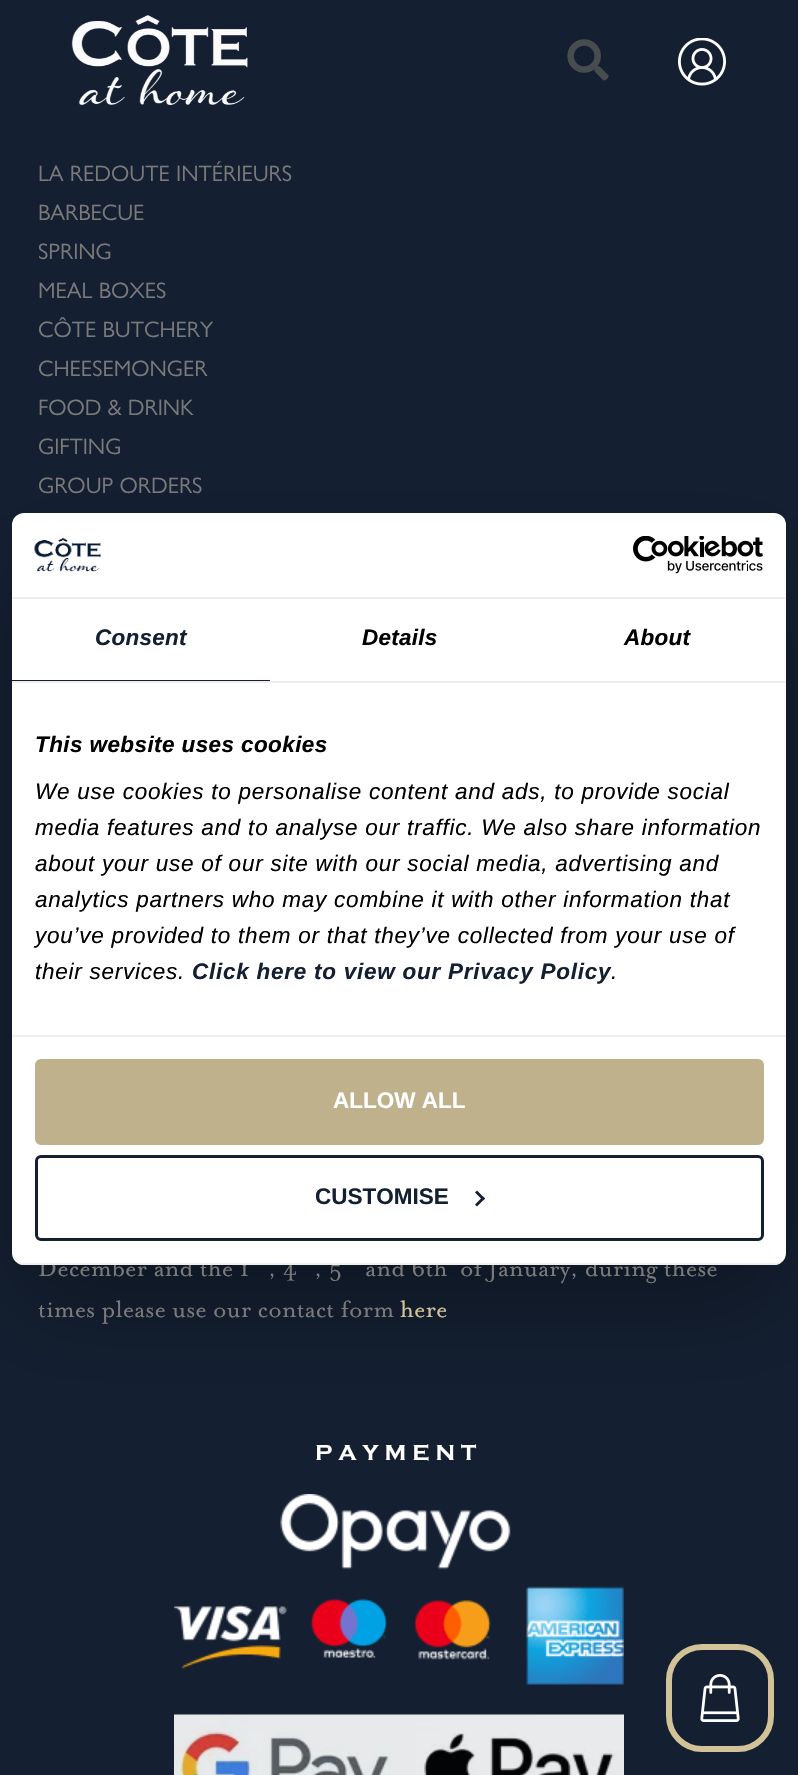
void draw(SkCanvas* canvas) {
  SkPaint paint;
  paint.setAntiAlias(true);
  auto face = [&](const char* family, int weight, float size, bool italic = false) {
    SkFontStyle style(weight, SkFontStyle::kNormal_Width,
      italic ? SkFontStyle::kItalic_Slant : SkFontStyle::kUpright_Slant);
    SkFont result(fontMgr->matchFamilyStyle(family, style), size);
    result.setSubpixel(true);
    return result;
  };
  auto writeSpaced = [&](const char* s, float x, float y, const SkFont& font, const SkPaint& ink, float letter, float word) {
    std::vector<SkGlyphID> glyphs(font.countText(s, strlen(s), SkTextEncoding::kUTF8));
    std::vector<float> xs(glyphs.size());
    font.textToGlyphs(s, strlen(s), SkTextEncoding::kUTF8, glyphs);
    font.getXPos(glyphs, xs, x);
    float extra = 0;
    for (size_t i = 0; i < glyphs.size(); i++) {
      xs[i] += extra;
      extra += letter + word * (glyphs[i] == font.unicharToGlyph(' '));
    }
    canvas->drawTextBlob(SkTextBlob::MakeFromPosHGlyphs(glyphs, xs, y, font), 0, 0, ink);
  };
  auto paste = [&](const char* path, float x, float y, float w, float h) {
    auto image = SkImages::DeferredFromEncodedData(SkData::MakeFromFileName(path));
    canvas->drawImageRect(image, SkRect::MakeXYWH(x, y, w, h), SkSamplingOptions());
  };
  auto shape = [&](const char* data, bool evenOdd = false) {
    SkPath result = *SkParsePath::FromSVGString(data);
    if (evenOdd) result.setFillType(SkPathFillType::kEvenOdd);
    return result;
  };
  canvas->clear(0xff142032);
  paste("img/1.png", 71, 15, 177, 90);
  paste("img/2.png", 567, 39, 42, 42);
  paste("img/3.png", 678, 38, 48, 48);
  paste("img/4.png", 174, 1494, 450, 191);
  paste("img/5.png", 174, 1714, 450, 61);
  paint.setColor(0x4d000000);
  paint.setMaskFilter(SkMaskFilter::MakeBlur(kNormal_SkBlurStyle, 51));
  canvas->drawRoundRect(SkRect::MakeXYWH(12, 561, 774, 752), 12, 12, paint);
  paint.setMaskFilter(nullptr);
  paint.setStroke(true);
  paint.setStrokeWidth(6);
  paint.setColor(0xffd2c298);
  canvas->drawRoundRect(SkRect::MakeXYWH(669, 1647, 102, 102), 33, 33, paint);
  paste("img/8.png", 700, 1674, 40, 48);
  auto f0 = face("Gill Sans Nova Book", 400, 22.5f);
  paint.setStroke(false);
  paint.setColor(0xff7a7a7a);
  {
    const struct { const char* s; float x, y; } items[] = {
      {"LA REDOUTE INTÉRIEURS", 38, 181},
      {"BARBECUE", 38, 220},
      {"SPRING", 38, 259},
      {"MEAL BOXES", 38, 298},
      {"CÔTE BUTCHERY", 38, 337},
      {"CHEESEMONGER", 38, 376},
      {"FOOD & DRINK", 38, 415},
      {"GIFTING", 38, 454},
      {"GROUP ORDERS", 38, 493},
    };
    for (auto [s, x, y] : items) {
      canvas->drawString(s, x, y, f0, paint);
    }
  }
  auto f1 = face("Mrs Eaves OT", 400, 27);
  {
    const struct { const char* s; float x, y; } items[] = {
      {"December and the 1", 38, 1276},
      {", 4", 268, 1276},
      {", 5", 314, 1276},
      {"and 6th  of January, during these", 365, 1276},
      {"times please use our contact form", 38, 1317},
    };
    for (auto [s, x, y] : items) {
      canvas->drawString(s, x, y, f1, paint);
    }
  }
  paint.setColor(0xffd1c299);
  canvas->drawString("here", 400, 1317, f1, paint);
  auto f2 = face("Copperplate", 700, 22.5f);
  paint.setColor(0xffffffff);
  writeSpaced("PAYMENT", 315, 1460, f2, paint, 6, 0);
  canvas->drawRoundRect(SkRect::MakeXYWH(12, 513, 774, 752), 12, 12, paint);
  paint.setColor(0xffeeeeee);
  canvas->drawRect(SkRect::MakeXYWH(12, 597, 774, 2), paint);
  paste("img/6.png", 34, 537, 67, 35);
  paste("img/7.png", 633, 536, 130, 38);
  canvas->drawRect(SkRect::MakeXYWH(12, 681, 774, 2), paint);
  paint.setColor(0xff142032);
  canvas->drawRect(SkRect::MakeXYWH(12, 680, 258, 1), paint);
  auto f3 = face("Liberation Sans", 700, 22.5f, true);
  writeSpaced("Consent", 95, 645, f3, paint, 0.25f, 0);
  paint.setColor(0xff000000);
  writeSpaced("Details", 362, 645, f3, paint, 0.25f, 0);
  writeSpaced("About", 624, 645, f3, paint, 0.25f, 0);
  paint.setColor(0xffeeeeee);
  canvas->drawRect(SkRect::MakeXYWH(12, 1035, 774, 2), paint);
  paint.setColor(0xff000000);
  writeSpaced("This website uses cookies", 35, 752, f3, paint, 0.4f, 0);
  auto f4 = face("Liberation Sans", 400, 22.5f, true);
  {
    const struct { const char* s; float x, y; } items[] = {
      {"We use cookies to personalise content and ads, to provide social", 35, 799},
      {"media features and to analyse our traffic. We also share information", 35, 835},
      {"about your use of our site with our social media, advertising and", 35, 871},
      {"analytics partners who may combine it with other information that", 35, 907},
      {"you’ve provided to them or that they’ve collected from your use of", 35, 943},
      {"their services.", 35, 979},
    };
    for (auto [s, x, y] : items) {
      writeSpaced(s, x, y, f4, paint, 0.75f, 0);
    }
  }
  paint.setColor(0xff142032);
  writeSpaced("Click here to view our Privacy Policy", 192, 979, f3, paint, 0.75f, 0);
  paint.setColor(0xff000000);
  writeSpaced(".", 611, 979, f4, paint, 0.75f, 0);
  canvas->save();
  canvas->clipPath(shape("M24 513H774C780.5 513 786 518.5 786 525V1253C786 1259.5 780.5 1265 774 1265H24C17.5 1265 12 1259.5 12 1253V525C12 518.5 17.5 513 24 513Z"), true);
  paint.setColor(0xffeeeeee);
  canvas->drawRect(SkRect::MakeXYWH(12, 1263, 774, 2), paint);
  canvas->restore();
  paint.setColor(0xffbeb18b);
  canvas->drawRoundRect(SkRect::MakeXYWH(36.5f, 1060.5f, 726, 83), 4.5f, 4.5f, paint);
  paint.setStroke(true);
  paint.setStrokeWidth(3);
  canvas->drawRoundRect(SkRect::MakeXYWH(36.5f, 1060.5f, 726, 83), 4.5f, 4.5f, paint);
  auto f5 = face("Liberation Sans", 700, 22.5f);
  paint.setStroke(false);
  paint.setColor(0xffffffff);
  canvas->drawString("ALLOW ALL", 333, 1108, f5, paint);
  paint.setStroke(true);
  paint.setColor(0xff132032);
  canvas->drawRoundRect(SkRect::MakeXYWH(36.5f, 1156.5f, 726, 83), 4.5f, 4.5f, paint);
  paint.setStroke(false);
  paint.setColor(0xff142032);
  canvas->drawString("CUSTOMISE", 315, 1204, f5, paint);
  paint.setColor(0xff132032);
  canvas->drawPath(shape("M477 1190.5L485 1198.5L483 1200.5L475 1192.5Z"), paint);
  canvas->drawPath(shape("M483 1196.5L485 1198.5L477 1206.5L475 1204.5Z"), paint);
}
